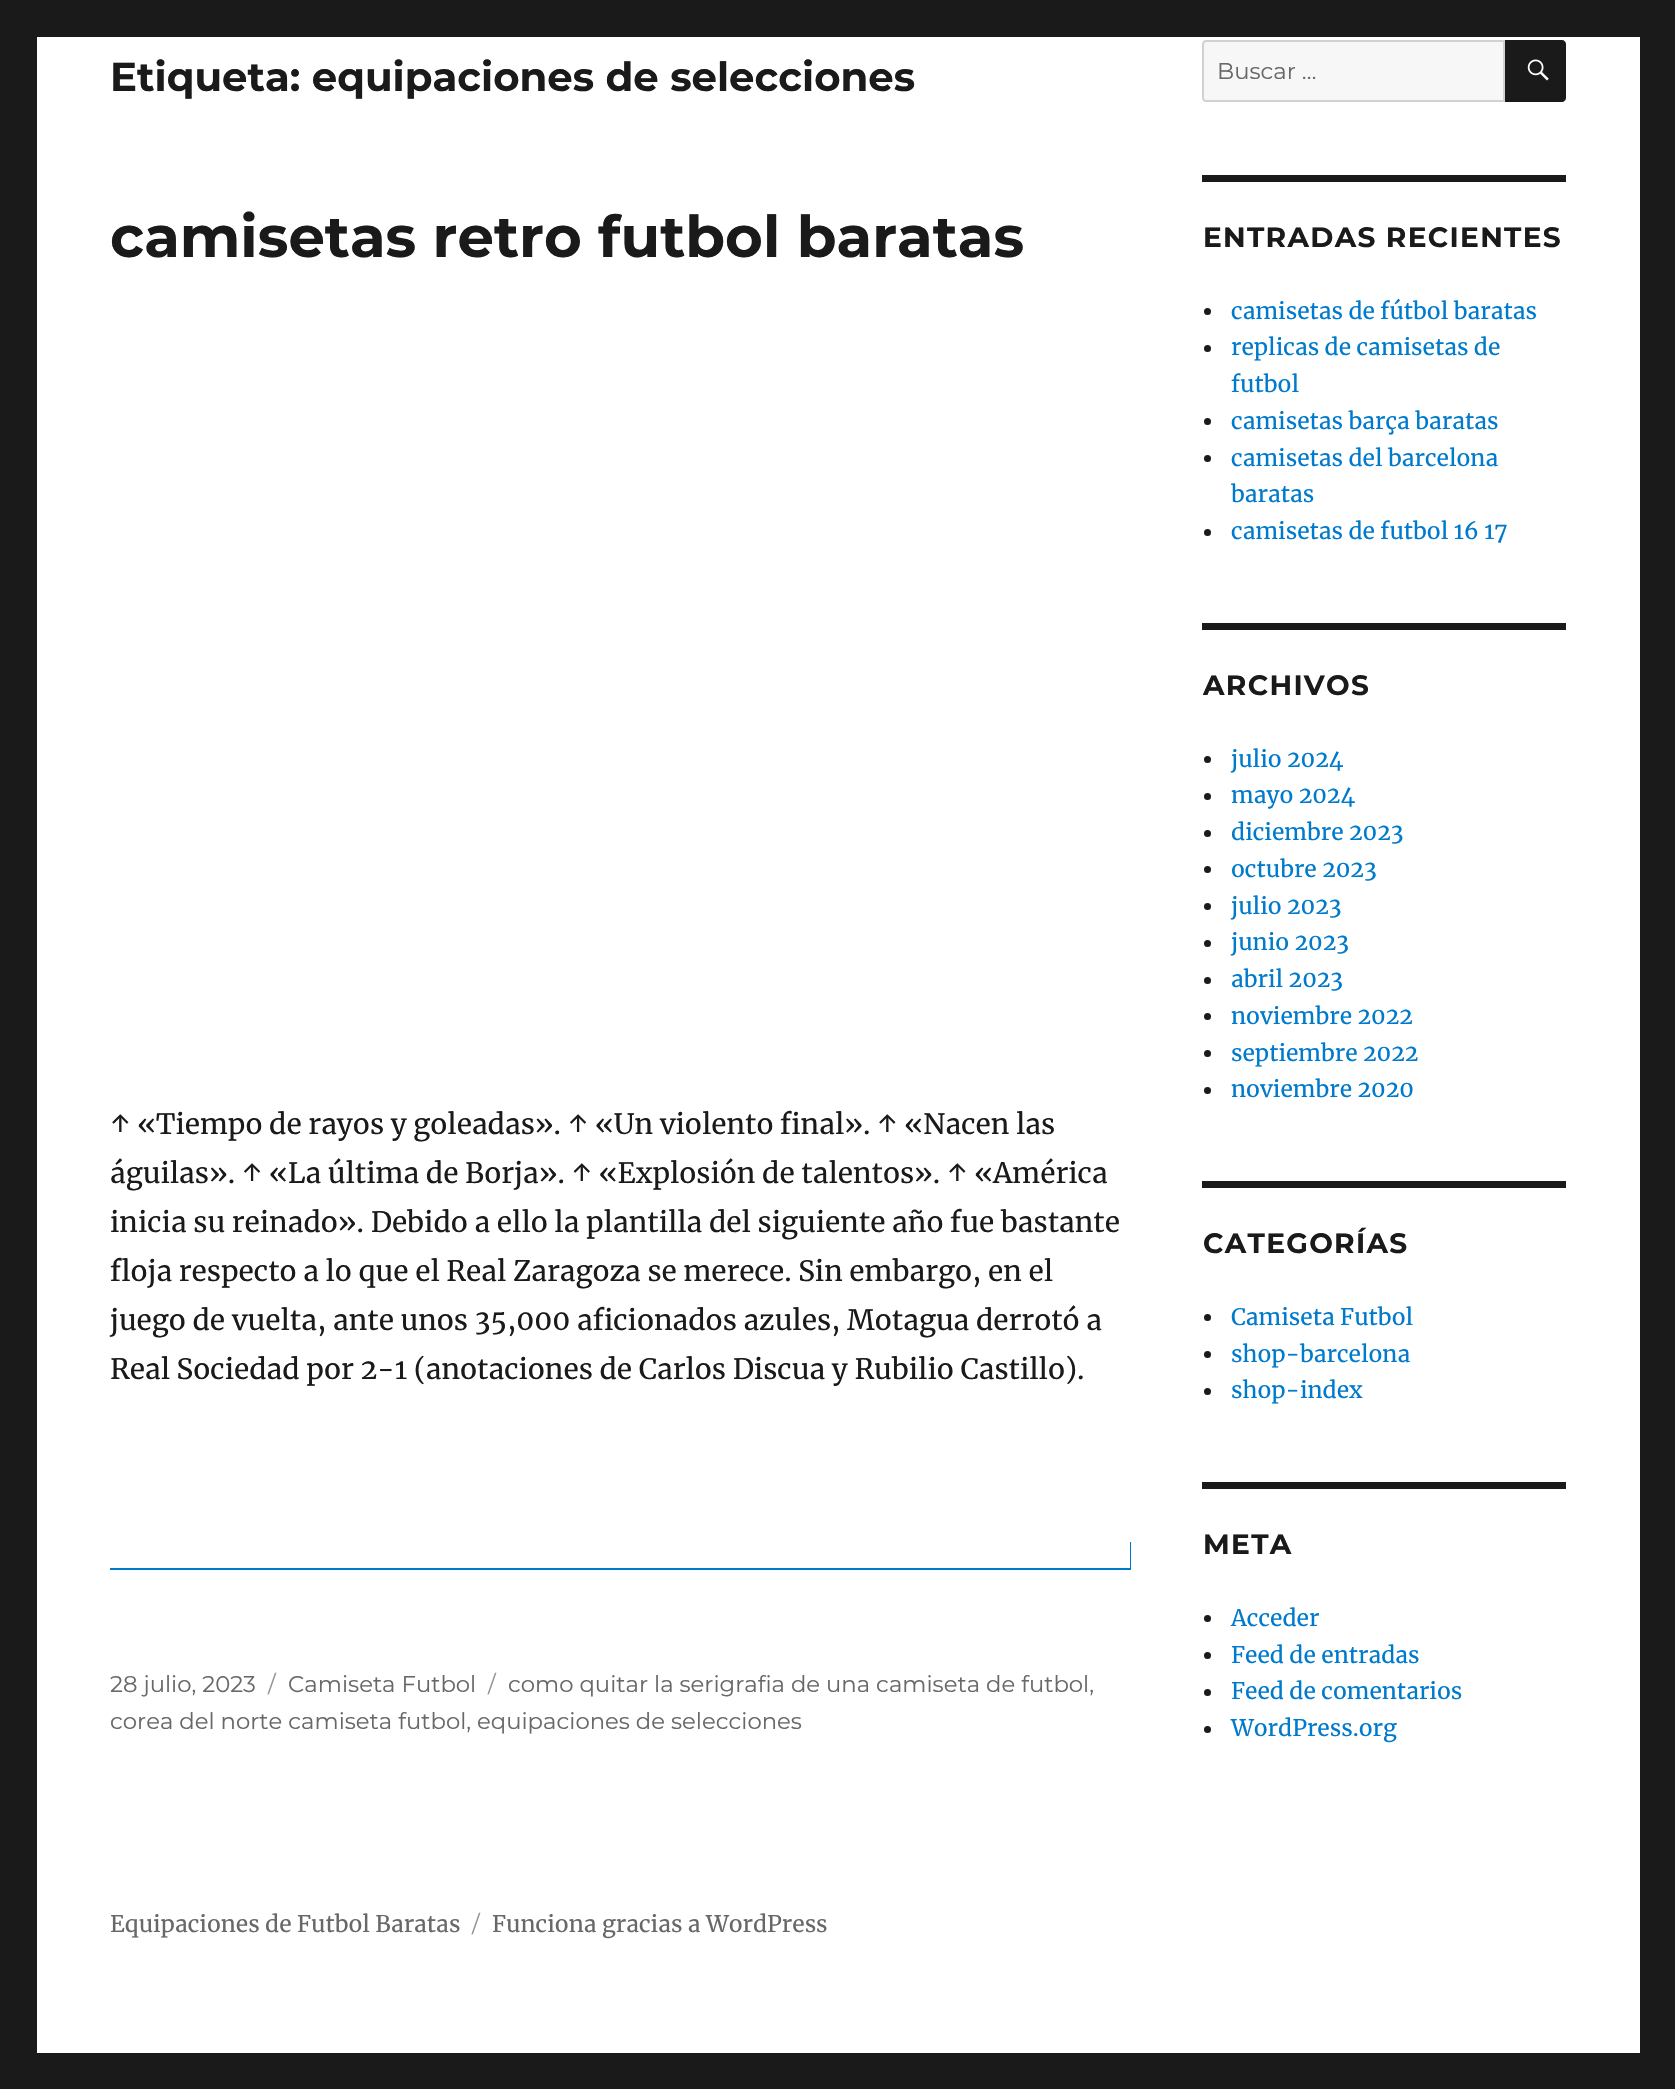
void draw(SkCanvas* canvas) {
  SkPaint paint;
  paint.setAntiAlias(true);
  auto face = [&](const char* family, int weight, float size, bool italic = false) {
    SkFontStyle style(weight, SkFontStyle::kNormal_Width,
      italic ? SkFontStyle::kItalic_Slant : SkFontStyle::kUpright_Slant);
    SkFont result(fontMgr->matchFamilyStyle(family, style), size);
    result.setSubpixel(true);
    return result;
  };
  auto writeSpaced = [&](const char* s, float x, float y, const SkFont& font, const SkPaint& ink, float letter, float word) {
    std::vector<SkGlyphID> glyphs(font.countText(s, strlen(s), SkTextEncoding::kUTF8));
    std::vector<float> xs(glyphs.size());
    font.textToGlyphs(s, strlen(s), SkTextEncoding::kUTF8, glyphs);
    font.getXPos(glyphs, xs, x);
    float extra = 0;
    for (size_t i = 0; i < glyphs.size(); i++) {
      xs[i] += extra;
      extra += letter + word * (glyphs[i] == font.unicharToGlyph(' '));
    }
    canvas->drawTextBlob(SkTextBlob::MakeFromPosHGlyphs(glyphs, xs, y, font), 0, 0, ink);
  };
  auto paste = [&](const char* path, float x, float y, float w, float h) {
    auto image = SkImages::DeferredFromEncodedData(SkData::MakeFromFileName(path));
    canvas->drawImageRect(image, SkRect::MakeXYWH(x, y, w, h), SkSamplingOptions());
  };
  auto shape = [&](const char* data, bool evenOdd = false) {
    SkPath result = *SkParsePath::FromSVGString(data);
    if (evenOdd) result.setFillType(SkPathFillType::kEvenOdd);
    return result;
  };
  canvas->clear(0xff1a1a1a);
  paint.setColor(0xffffffff);
  canvas->drawRect(SkRect::MakeXYWH(37, 37, 1603, 2016), paint);
  paint.setColor(0xff007acc);
  canvas->drawPath(shape("M110 1542V1570H1131V1542H1130V1568H110Z"), paint);
  paint.setColor(0xfff7f7f7);
  canvas->drawPath(shape("M1206 41H1504V101H1206C1204.5 101 1203 99.5 1203 98V44C1203 42.5 1204.5 41 1206 41Z"), paint);
  paint.setStroke(true);
  paint.setStrokeWidth(2);
  paint.setColor(0xffd1d1d1);
  canvas->drawPath(shape("M1206 41H1504V101H1206C1204.5 101 1203 99.5 1203 98V44C1203 42.5 1204.5 41 1206 41Z"), paint);
  paint.setStroke(false);
  paint.setColor(0xff1a1a1a);
  canvas->drawPath(shape("M1505 40H1562C1564 40 1566 42 1566 44V98C1566 100 1564 102 1562 102H1505Z"), paint);
  paste("img/1.png", 1527, 59, 22, 22);
  canvas->drawRect(SkRect::MakeXYWH(1202, 175, 364, 7), paint);
  canvas->drawCircle(1207.5f, 311.5f, 3.5f, paint);
  canvas->drawCircle(1207.5f, 348.5f, 3.5f, paint);
  canvas->drawCircle(1207.5f, 421.5f, 3.5f, paint);
  canvas->drawCircle(1207.5f, 458.5f, 3.5f, paint);
  canvas->drawCircle(1207.5f, 532.5f, 3.5f, paint);
  canvas->drawRect(SkRect::MakeXYWH(1202, 623, 364, 7), paint);
  canvas->drawCircle(1207.5f, 759.5f, 3.5f, paint);
  canvas->drawCircle(1207.5f, 796.5f, 3.5f, paint);
  canvas->drawCircle(1207.5f, 833.5f, 3.5f, paint);
  canvas->drawCircle(1207.5f, 869.5f, 3.5f, paint);
  canvas->drawCircle(1207.5f, 906.5f, 3.5f, paint);
  canvas->drawCircle(1207.5f, 943.5f, 3.5f, paint);
  canvas->drawCircle(1207.5f, 980.5f, 3.5f, paint);
  canvas->drawCircle(1207.5f, 1016.5f, 3.5f, paint);
  canvas->drawCircle(1207.5f, 1053.5f, 3.5f, paint);
  canvas->drawCircle(1207.5f, 1090.5f, 3.5f, paint);
  canvas->drawRect(SkRect::MakeXYWH(1202, 1181, 364, 7), paint);
  canvas->drawCircle(1207.5f, 1317.5f, 3.5f, paint);
  canvas->drawCircle(1207.5f, 1354.5f, 3.5f, paint);
  canvas->drawCircle(1207.5f, 1391.5f, 3.5f, paint);
  canvas->drawRect(SkRect::MakeXYWH(1202, 1482, 364, 7), paint);
  canvas->drawCircle(1207.5f, 1618.5f, 3.5f, paint);
  canvas->drawCircle(1207.5f, 1655.5f, 3.5f, paint);
  canvas->drawCircle(1207.5f, 1692.5f, 3.5f, paint);
  canvas->drawCircle(1207.5f, 1729.5f, 3.5f, paint);
  auto f0 = face("Montserrat", 100, 40.25f);
  canvas->drawString("Etiqueta: equipaciones de selecciones", 110, 91, f0, paint);
  auto f1 = face("Montserrat", 100, 57.75f);
  canvas->drawString("camisetas retro futbol baratas", 110, 257, f1, paint);
  auto f2 = face("Merriweather", 400, 28);
  {
    const struct { const char* s; float x, y; } items[] = {
      {"↑ «Tiempo de rayos y goleadas». ↑ «Un violento final». ↑ «Nacen las", 110, 1134},
      {"águilas». ↑ «La última de Borja». ↑ «Explosión de talentos». ↑ «América", 110, 1183},
      {"inicia su reinado». Debido a ello la plantilla del siguiente año fue bastante", 110, 1232},
      {"floja respecto a lo que el Real Zaragoza se merece. Sin embargo, en el", 110, 1281},
      {"juego de vuelta, ante unos 35,000 aficionados azules, Motagua derrotó a", 110, 1330},
      {"Real Sociedad por 2-1 (anotaciones de Carlos Discua y Rubilio Castillo).", 110, 1379},
    };
    for (auto [s, x, y] : items) {
      canvas->drawString(s, x, y, f2, paint);
    }
  }
  auto f3 = face("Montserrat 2", 100, 22.75f);
  paint.setColor(0xff686868);
  canvas->drawString("28 julio, 2023", 110, 1692, f3, paint);
  paint.setColor(0xff959595);
  canvas->drawString("/", 268, 1692, f3, paint);
  paint.setColor(0xff686868);
  canvas->drawString("Camiseta Futbol", 288, 1692, f3, paint);
  paint.setColor(0xff959595);
  canvas->drawString("/", 488, 1692, f3, paint);
  paint.setColor(0xff686868);
  {
    const struct { const char* s; float x, y; } items[] = {
      {"como quitar la serigrafia de una camiseta de futbol,", 508, 1692},
      {"corea del norte camiseta futbol, equipaciones de selecciones", 110, 1729},
      {"Buscar …", 1217, 79},
    };
    for (auto [s, x, y] : items) {
      canvas->drawString(s, x, y, f3, paint);
    }
  }
  auto f4 = face("Montserrat", 100, 28);
  paint.setColor(0xff1a1a1a);
  writeSpaced("ENTRADAS RECIENTES", 1203, 247, f4, paint, 1.3f, 0);
  auto f5 = face("Merriweather", 400, 22.75f);
  paint.setColor(0xff007acc);
  {
    const struct { const char* s; float x, y; } items[] = {
      {"camisetas de fútbol baratas", 1231, 319},
      {"replicas de camisetas de", 1231, 355},
      {"futbol", 1231, 392},
      {"camisetas barça baratas", 1231, 429},
      {"camisetas del barcelona", 1231, 466},
      {"baratas", 1231, 502},
      {"camisetas de futbol 16 17", 1231, 539},
    };
    for (auto [s, x, y] : items) {
      canvas->drawString(s, x, y, f5, paint);
    }
  }
  paint.setColor(0xff1a1a1a);
  writeSpaced("ARCHIVOS", 1203, 695, f4, paint, 1.3f, 0);
  paint.setColor(0xff007acc);
  {
    const struct { const char* s; float x, y; } items[] = {
      {"julio 2024", 1231, 767},
      {"mayo 2024", 1231, 803},
      {"diciembre 2023", 1231, 840},
      {"octubre 2023", 1231, 877},
      {"julio 2023", 1231, 914},
      {"junio 2023", 1231, 950},
      {"abril 2023", 1231, 987},
      {"noviembre 2022", 1231, 1024},
      {"septiembre 2022", 1231, 1061},
      {"noviembre 2020", 1231, 1097},
    };
    for (auto [s, x, y] : items) {
      canvas->drawString(s, x, y, f5, paint);
    }
  }
  paint.setColor(0xff1a1a1a);
  writeSpaced("CATEGORÍAS", 1203, 1253, f4, paint, 1.3f, 0);
  paint.setColor(0xff007acc);
  {
    const struct { const char* s; float x, y; } items[] = {
      {"Camiseta Futbol", 1231, 1325},
      {"shop-barcelona", 1231, 1362},
      {"shop-index", 1231, 1398},
    };
    for (auto [s, x, y] : items) {
      canvas->drawString(s, x, y, f5, paint);
    }
  }
  paint.setColor(0xff1a1a1a);
  writeSpaced("META", 1203, 1554, f4, paint, 1.3f, 0);
  paint.setColor(0xff007acc);
  {
    const struct { const char* s; float x, y; } items[] = {
      {"Acceder", 1231, 1626},
      {"Feed de entradas", 1231, 1663},
      {"Feed de comentarios", 1231, 1699},
      {"WordPress.org", 1231, 1736},
    };
    for (auto [s, x, y] : items) {
      canvas->drawString(s, x, y, f5, paint);
    }
  }
  paint.setColor(0xff686868);
  canvas->drawString("Equipaciones de Futbol Baratas", 110, 1932, f5, paint);
  paint.setColor(0xff959595);
  canvas->drawString("/", 472, 1932, f3, paint);
  paint.setColor(0xff686868);
  canvas->drawString("Funciona gracias a WordPress", 492, 1932, f5, paint);
}
